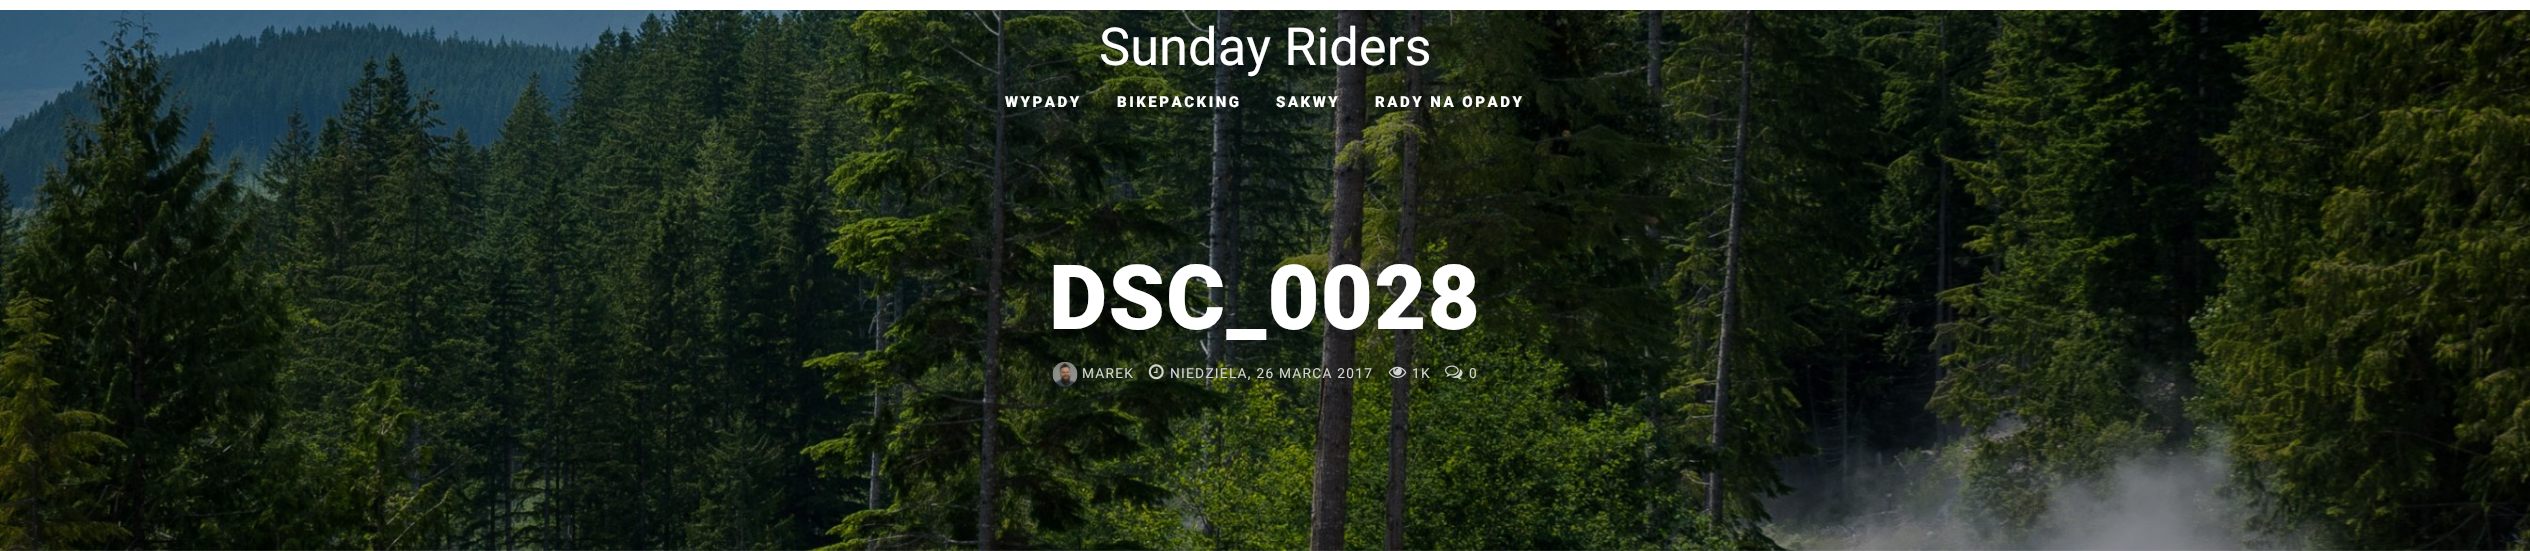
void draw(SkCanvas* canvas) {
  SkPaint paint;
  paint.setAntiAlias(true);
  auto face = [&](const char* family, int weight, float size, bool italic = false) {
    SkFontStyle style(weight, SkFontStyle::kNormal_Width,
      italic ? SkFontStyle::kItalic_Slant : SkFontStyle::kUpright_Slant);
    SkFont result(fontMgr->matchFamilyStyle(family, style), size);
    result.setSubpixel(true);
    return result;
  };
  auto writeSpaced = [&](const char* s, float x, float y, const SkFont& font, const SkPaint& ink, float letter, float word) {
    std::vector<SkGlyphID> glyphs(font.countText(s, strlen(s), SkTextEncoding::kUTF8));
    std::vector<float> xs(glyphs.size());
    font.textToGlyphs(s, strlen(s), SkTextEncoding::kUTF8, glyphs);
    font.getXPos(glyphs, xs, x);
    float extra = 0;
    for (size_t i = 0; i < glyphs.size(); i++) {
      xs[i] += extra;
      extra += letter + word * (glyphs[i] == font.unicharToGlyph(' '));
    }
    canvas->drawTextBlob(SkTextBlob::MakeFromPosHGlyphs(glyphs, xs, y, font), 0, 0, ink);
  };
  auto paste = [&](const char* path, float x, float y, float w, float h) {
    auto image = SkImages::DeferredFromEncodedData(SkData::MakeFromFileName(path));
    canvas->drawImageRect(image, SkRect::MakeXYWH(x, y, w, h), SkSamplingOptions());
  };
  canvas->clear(0xffffffff);
  paste("img/1.png", 0, 10, 2530, 541);
  paste("img/2.png", 1052, 361, 26, 26);
  paste("img/3.png", 1148, 364, 16, 16);
  paste("img/4.png", 1388, 366, 19, 12);
  paste("img/5.png", 1445, 365, 18, 15);
  auto f0 = face("Roboto", 400, 52.5f);
  paint.setColor(0xffffffff);
  canvas->drawString("Sunday Riders", 1099, 65, f0, paint);
  auto f1 = face("Roboto", 900, 15);
  {
    const struct { const char* s; float x, y; } items[] = {
      {"WYPADY", 1005, 107},
      {"BIKEPACKING", 1117, 107},
      {"SAKWY", 1276, 107},
      {"RADY NA OPADY", 1375, 107},
    };
    for (auto [s, x, y] : items) {
      writeSpaced(s, x, y, f1, paint, 2.5f, 0);
    }
  }
  auto f2 = face("Roboto", 900, 90);
  writeSpaced("DSC_0028", 1049, 329, f2, paint, 1.25f, 0);
  auto f3 = face("Roboto", 400, 13.75f);
  paint.setColor(0xffd2d4cf);
  {
    const struct { const char* s; float x, y; } items[] = {
      {"MAREK", 1082, 378},
      {"NIEDZIELA, 26 MARCA 2017", 1170, 378},
      {"1K", 1412, 378},
      {"0", 1469, 378},
    };
    for (auto [s, x, y] : items) {
      writeSpaced(s, x, y, f3, paint, 1.25f, 0);
    }
  }
}
